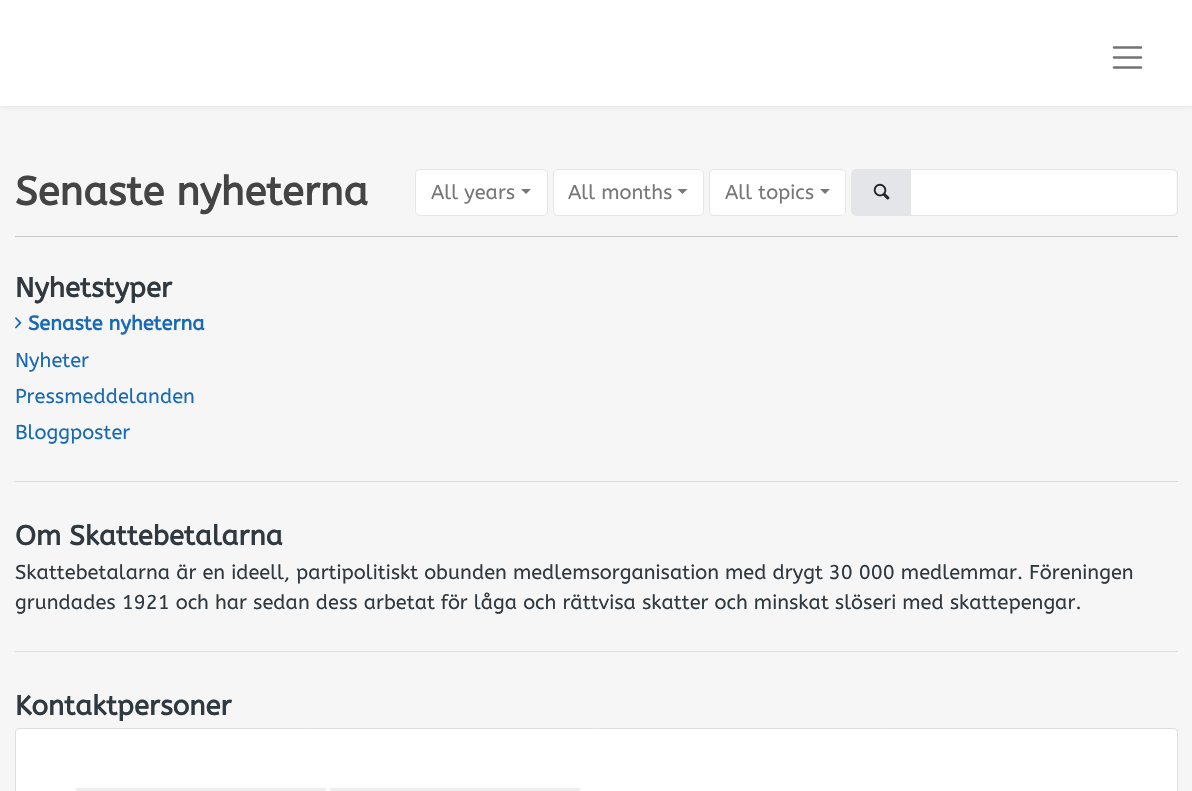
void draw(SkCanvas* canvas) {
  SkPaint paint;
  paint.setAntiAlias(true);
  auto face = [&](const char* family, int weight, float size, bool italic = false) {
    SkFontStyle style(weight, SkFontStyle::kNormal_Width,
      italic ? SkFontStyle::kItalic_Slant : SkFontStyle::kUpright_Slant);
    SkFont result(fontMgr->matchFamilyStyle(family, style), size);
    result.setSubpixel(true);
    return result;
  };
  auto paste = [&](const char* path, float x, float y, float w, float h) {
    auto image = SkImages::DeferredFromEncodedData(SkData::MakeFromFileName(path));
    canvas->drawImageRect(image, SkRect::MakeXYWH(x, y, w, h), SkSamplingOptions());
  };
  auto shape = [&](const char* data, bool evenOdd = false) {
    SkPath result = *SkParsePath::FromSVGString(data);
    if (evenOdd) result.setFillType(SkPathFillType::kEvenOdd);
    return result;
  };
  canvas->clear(0xfff6f6f6);
  paint.setColor(0x1a000000);
  paint.setMaskFilter(SkMaskFilter::MakeBlur(kNormal_SkBlurStyle, 2.5f));
  canvas->drawRect(SkRect::MakeXYWH(0, 0, 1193, 106), paint);
  paint.setMaskFilter(nullptr);
  paint.setColor(0xffffffff);
  canvas->drawRect(SkRect::MakeXYWH(0, 0, 1192, 106), paint);
  paint.setStroke(true);
  paint.setStrokeWidth(2.5f);
  paint.setStrokeCap(SkPaint::kRound_Cap);
  paint.setColor(0xff737373);
  canvas->drawPath(shape("M1114 47.5H1141M1114 57.5H1141M1114 67.5H1141"), paint);
  paint.setStroke(false);
  paint.setColor(0xffffffff);
  canvas->drawRoundRect(SkRect::MakeXYWH(415.5f, 169.5f, 132, 46), 4.5f, 4.5f, paint);
  paint.setStroke(true);
  paint.setStrokeWidth(1);
  paint.setStrokeCap(SkPaint::kButt_Cap);
  paint.setColor(0xffe6e6e6);
  canvas->drawRoundRect(SkRect::MakeXYWH(415.5f, 169.5f, 132, 46), 4.5f, 4.5f, paint);
  paint.setStroke(false);
  paint.setColor(0xff777777);
  canvas->drawPath(shape("M521 189H531L526 194Z"), paint);
  paint.setColor(0xffffffff);
  canvas->drawRoundRect(SkRect::MakeXYWH(553.5f, 169.5f, 150, 46), 4.5f, 4.5f, paint);
  paint.setStroke(true);
  paint.setColor(0xffe6e6e6);
  canvas->drawRoundRect(SkRect::MakeXYWH(553.5f, 169.5f, 150, 46), 4.5f, 4.5f, paint);
  paint.setStroke(false);
  paint.setColor(0xff777777);
  canvas->drawPath(shape("M677.5 189H687.5L682.5 194Z"), paint);
  paint.setColor(0xffffffff);
  canvas->drawRoundRect(SkRect::MakeXYWH(709.5f, 169.5f, 136, 46), 4.5f, 4.5f, paint);
  paint.setStroke(true);
  paint.setColor(0xffe6e6e6);
  canvas->drawRoundRect(SkRect::MakeXYWH(709.5f, 169.5f, 136, 46), 4.5f, 4.5f, paint);
  paint.setStroke(false);
  paint.setColor(0xff777777);
  canvas->drawPath(shape("M820 189H830L825 194Z"), paint);
  paint.setColor(0xffe3e5e8);
  canvas->drawPath(shape("M856 169.5H910.5V215.5H856C853.5 215.5 851.5 213.5 851.5 211V174C851.5 171.5 853.5 169.5 856 169.5Z"), paint);
  paint.setStroke(true);
  paint.setColor(0xffe6e6e6);
  canvas->drawPath(shape("M856 169.5H910.5V215.5H856C853.5 215.5 851.5 213.5 851.5 211V174C851.5 171.5 853.5 169.5 856 169.5Z"), paint);
  paste("img/1.png", 873, 183, 17, 17);
  paint.setStroke(false);
  paint.setColor(0xffffffff);
  canvas->drawPath(shape("M911 170H1172C1174 170 1176 172 1176 174V211C1176 213 1174 215 1172 215H911Z"), paint);
  paint.setStroke(true);
  paint.setColor(0xffe6e6e6);
  canvas->drawPath(shape("M910.5 169.5H1173C1175.5 169.5 1177.5 171.5 1177.5 174V211C1177.5 213.5 1175.5 215.5 1173 215.5H910.5Z"), paint);
  paint.setStroke(false);
  paint.setColor(0xffc5c7c8);
  canvas->drawRect(SkRect::MakeXYWH(15, 236, 1163, 1), paint);
  paint.setColor(0xffdddddd);
  canvas->drawRect(SkRect::MakeXYWH(15, 481, 1163, 1), paint);
  paste("img/2.png", 15, 317, 7, 12);
  canvas->drawRect(SkRect::MakeXYWH(15, 651, 1163, 1), paint);
  paint.setColor(0xffffffff);
  canvas->drawRoundRect(SkRect::MakeXYWH(15.5f, 728.5f, 1162, 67), 3.5f, 3.5f, paint);
  paint.setStroke(true);
  paint.setColor(0xffdedede);
  canvas->drawRoundRect(SkRect::MakeXYWH(15.5f, 728.5f, 1162, 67), 3.5f, 3.5f, paint);
  paint.setStroke(false);
  {
    const SkColor colors[] = {0xffeeeeee, 0xffdddddd, 0xffeeeeee};
    const float stops[] = {0.08f, 0.18f, 0.33f};
    const SkPoint ends[] = {{-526, 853}, {661, 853}};
    paint.setShader(SkGradientShader::MakeLinear(ends, colors, stops, 3, SkTileMode::kClamp));
    paint.setAlpha(255);
  }
  canvas->drawRect(SkRect::MakeXYWH(76, 788, 250, 3), paint);
  {
    const SkColor colors[] = {0xffeeeeee, 0xffdddddd, 0xffeeeeee};
    const float stops[] = {0.08f, 0.18f, 0.33f};
    const SkPoint ends[] = {{-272, 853}, {915, 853}};
    paint.setShader(SkGradientShader::MakeLinear(ends, colors, stops, 3, SkTileMode::kClamp));
    paint.setAlpha(255);
  }
  canvas->drawRect(SkRect::MakeXYWH(330, 788, 250, 3), paint);
  auto f0 = face("ABeeZee", 700, 40);
  paint.setShader(nullptr);
  paint.setColor(0xff444444);
  canvas->drawString("Senaste nyheterna", 15, 205, f0, paint);
  auto f1 = face("ABeeZee", 400, 20);
  paint.setColor(0xff777777);
  {
    const struct { const char* s; float x, y; } items[] = {
      {"All years", 431, 199},
      {"All months", 568, 199},
      {"All topics", 725, 199},
    };
    for (auto [s, x, y] : items) {
      canvas->drawString(s, x, y, f1, paint);
    }
  }
  auto f2 = face("ABeeZee", 700, 27.5f);
  paint.setColor(0xff30393f);
  canvas->drawString("Nyhetstyper", 15, 297, f2, paint);
  auto f3 = face("ABeeZee", 700, 20);
  paint.setColor(0xff186ab4);
  canvas->drawString("Senaste nyheterna", 28, 330, f3, paint);
  {
    const struct { const char* s; float x, y; } items[] = {
      {"Nyheter", 15, 367},
      {"Pressmeddelanden", 15, 403},
      {"Bloggposter", 15, 439},
    };
    for (auto [s, x, y] : items) {
      canvas->drawString(s, x, y, f1, paint);
    }
  }
  paint.setColor(0xff30393f);
  canvas->drawString("Om Skattebetalarna", 15, 545, f2, paint);
  canvas->drawString("Skattebetalarna är en ideell, partipolitiskt obunden medlemsorganisation med drygt 30 000 medlemmar. Föreningen", 15, 579, f1, paint);
  canvas->drawString("grundades 1921 och har sedan dess arbetat för låga och rättvisa skatter och minskat slöseri med skattepengar.", 15, 609, f1, paint);
  canvas->drawString("Kontaktpersoner", 15, 715, f2, paint);
}
